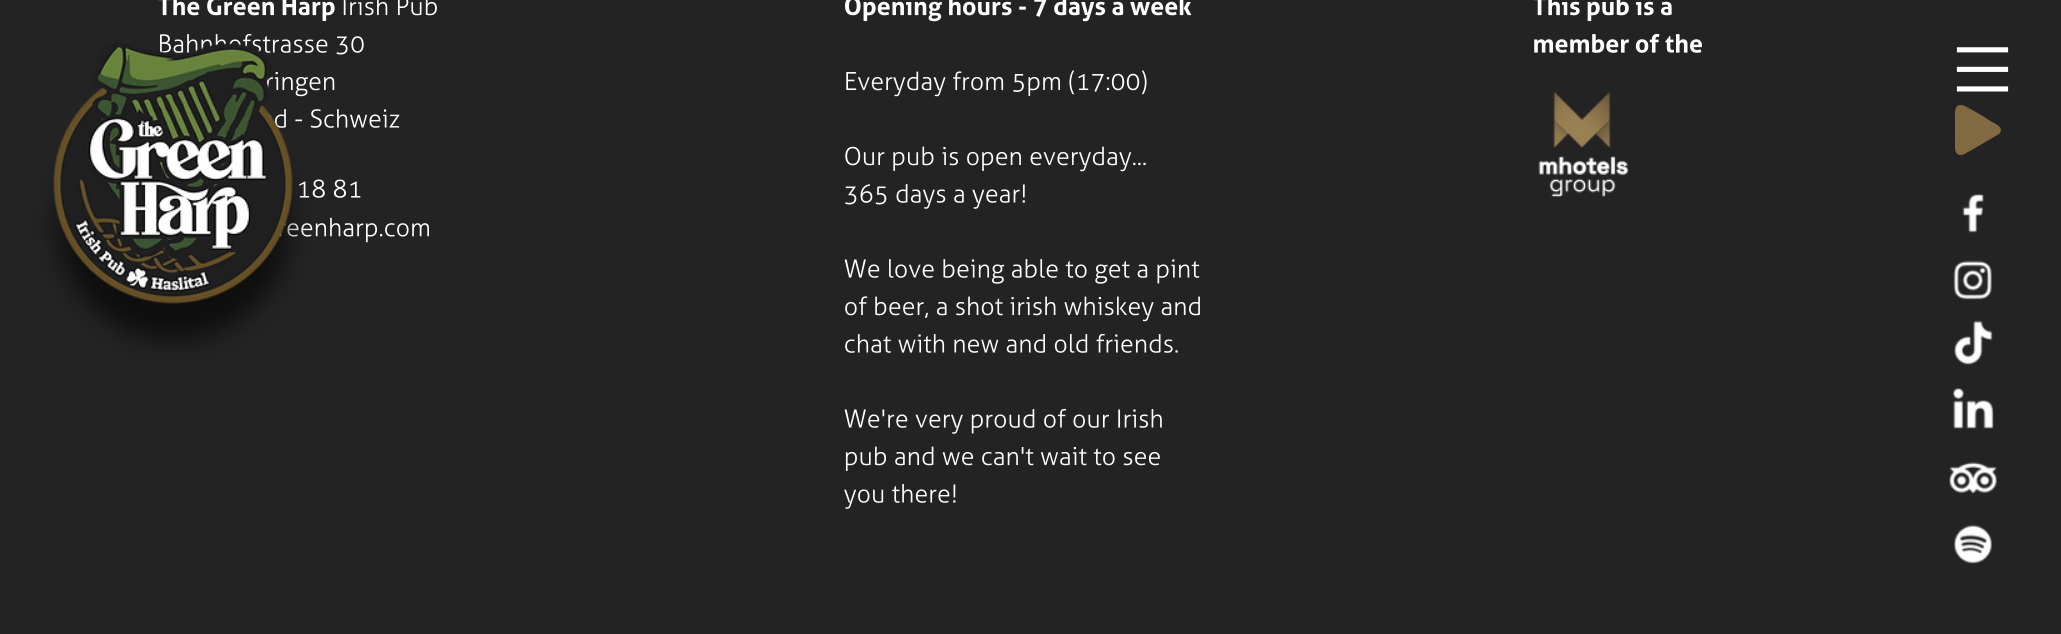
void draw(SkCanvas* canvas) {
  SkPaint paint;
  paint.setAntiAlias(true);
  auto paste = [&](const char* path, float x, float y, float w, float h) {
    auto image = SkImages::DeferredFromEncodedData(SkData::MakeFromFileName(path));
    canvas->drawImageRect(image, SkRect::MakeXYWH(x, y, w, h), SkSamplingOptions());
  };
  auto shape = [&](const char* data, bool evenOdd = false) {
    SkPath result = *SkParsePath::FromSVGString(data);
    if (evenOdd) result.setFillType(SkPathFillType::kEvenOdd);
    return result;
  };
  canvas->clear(0xff242323);
  paste("img/1.png", 158, 0, 177, 22);
  paste("img/2.png", 343, 0, 94, 16);
  paste("img/3.png", 160, 33, 204, 22);
  paste("img/4.png", 262, 72, 73, 25);
  paste("img/5.png", 266, 109, 134, 19);
  paste("img/6.png", 299, 179, 62, 19);
  paste("img/7.png", 274, 217, 155, 26);
  paste("img/8.png", 845, 0, 347, 22);
  paste("img/9.png", 846, 70, 301, 27);
  paste("img/10.png", 845, 146, 301, 26);
  paste("img/11.png", 845, 184, 180, 25);
  paste("img/12.png", 844, 259, 356, 25);
  paste("img/13.png", 845, 296, 355, 26);
  paste("img/14.png", 845, 333, 333, 20);
  paste("img/15.png", 844, 408, 318, 26);
  paste("img/16.png", 845, 446, 315, 25);
  paste("img/17.png", 844, 484, 112, 25);
  paste("img/18.png", 1533, 0, 139, 22);
  paste("img/19.png", 1534, 33, 168, 20);
  paste("img/20.png", 1538, 92, 91, 106);
  paint.setColor(0x99000000);
  paint.setMaskFilter(SkMaskFilter::MakeBlur(kNormal_SkBlurStyle, 12.5f));
  canvas->drawRoundRect(SkRect::MakeXYWH(58, 109, 231, 231), 115.5f, 115.5f, paint);
  paint.setMaskFilter(nullptr);
  paste("img/21.png", 53, 42, 240, 262);
  paste("img/22.png", 1956, 47, 53, 45);
  paint.setColor(0xff816a42);
  canvas->drawPath(shape("M1961 155C1954 155 1955 147 1955 142V118C1955 113 1954 105 1961 105C1965 105 1977 113 1981 115L1992 122C1996 124 2005 128 1999 134L1970 151C1967 152 1964 155 1961 155"), paint);
  paste("img/23.png", 1962, 194, 22, 39);
  paste("img/24.png", 1953, 260, 39, 40);
  paste("img/25.png", 1954, 320, 39, 45);
  paste("img/26.png", 1952, 388, 42, 41);
  paste("img/27.png", 1949, 462, 48, 32);
  paste("img/28.png", 1953, 524, 40, 40);
}
